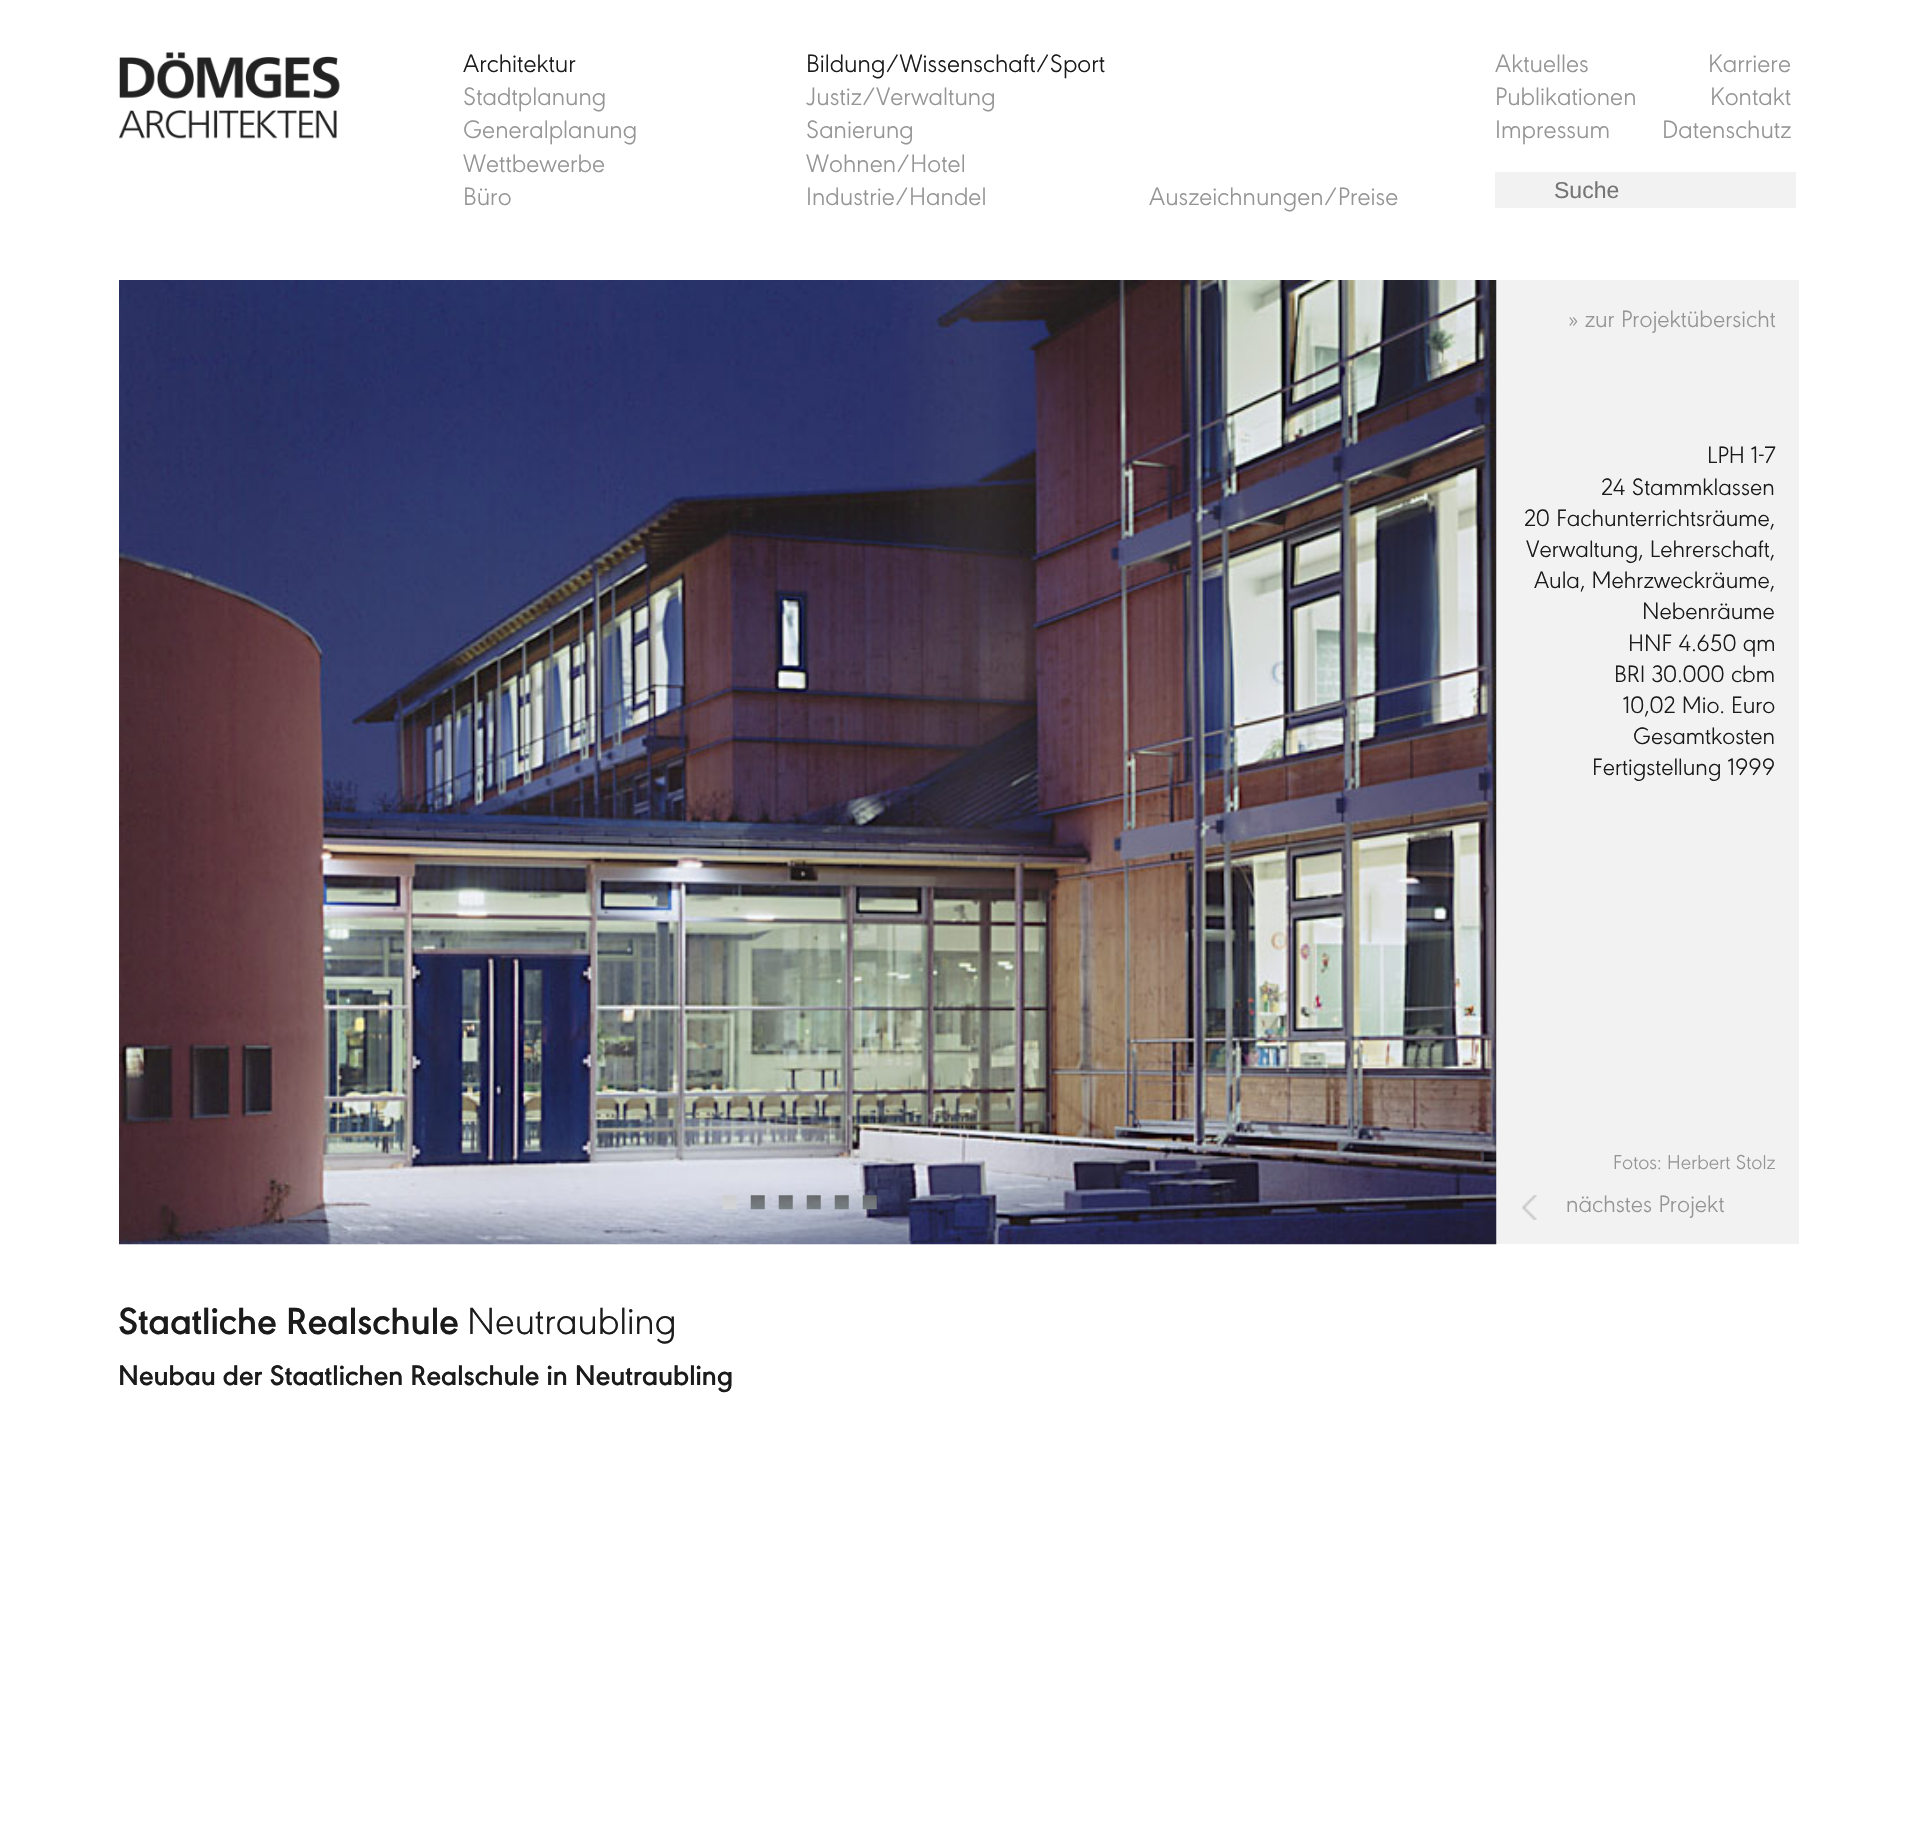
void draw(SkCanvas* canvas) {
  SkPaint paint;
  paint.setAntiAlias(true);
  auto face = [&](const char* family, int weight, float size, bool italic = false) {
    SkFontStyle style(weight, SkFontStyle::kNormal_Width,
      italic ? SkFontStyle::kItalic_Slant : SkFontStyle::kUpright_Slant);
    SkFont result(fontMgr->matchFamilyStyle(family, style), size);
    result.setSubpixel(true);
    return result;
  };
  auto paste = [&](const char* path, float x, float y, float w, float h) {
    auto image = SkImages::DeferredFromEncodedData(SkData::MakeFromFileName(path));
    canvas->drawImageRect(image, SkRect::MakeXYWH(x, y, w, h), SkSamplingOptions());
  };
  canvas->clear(0xffffffff);
  paste("img/1.png", 119, 52, 221, 87);
  paint.setColor(0xfff2f2f2);
  canvas->drawRect(SkRect::MakeXYWH(1495, 172, 301, 36), paint);
  canvas->drawRect(SkRect::MakeXYWH(1496, 280, 303, 964), paint);
  paste("img/2.png", 119, 280, 1378, 965);
  paste("img/3.png", 722, 1195, 15, 15);
  paste("img/4.png", 750, 1195, 15, 15);
  paste("img/5.png", 778, 1195, 15, 15);
  paste("img/6.png", 806, 1195, 15, 15);
  paste("img/7.png", 834, 1195, 15, 15);
  paste("img/8.png", 862, 1195, 15, 15);
  paste("img/9.png", 1522, 1195, 15, 25);
  auto f0 = face("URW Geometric", 300, 26.25f);
  paint.setColor(0xff1b1b1b);
  canvas->drawString("Architektur", 463, 72, f0, paint);
  paint.setColor(0xff959595);
  {
    const struct { const char* s; float x, y; } items[] = {
      {"Stadtplanung", 463, 105},
      {"Generalplanung", 463, 138},
      {"Wettbewerbe", 463, 172},
      {"Büro", 463, 205},
    };
    for (auto [s, x, y] : items) {
      canvas->drawString(s, x, y, f0, paint);
    }
  }
  paint.setColor(0xff1b1b1b);
  canvas->drawString("Bildung/Wissenschaft/Sport", 806, 72, f0, paint);
  paint.setColor(0xff959595);
  {
    const struct { const char* s; float x, y; } items[] = {
      {"Justiz/Verwaltung", 806, 105},
      {"Sanierung", 806, 138},
      {"Wohnen/Hotel", 806, 172},
      {"Industrie/Handel", 806, 205},
      {"Auszeichnungen/Preise", 1149, 205},
      {"Aktuelles", 1495, 72},
      {"Karriere", 1708, 72},
      {"Publikationen", 1495, 105},
      {"Kontakt", 1710, 105},
      {"Impressum", 1495, 138},
      {"Datenschutz", 1662, 138},
    };
    for (auto [s, x, y] : items) {
      canvas->drawString(s, x, y, f0, paint);
    }
  }
  auto f1 = face("Liberation Sans", 400, 23);
  paint.setColor(0xff757575);
  canvas->drawString("Suche", 1554, 198, f1, paint);
  auto f2 = face("URW Geometric", 300, 24.6f);
  paint.setColor(0xff959595);
  canvas->drawString("» zur Projektübersicht", 1568, 327, f2, paint);
  paint.setColor(0xff1b1b1b);
  {
    const struct { const char* s; float x, y; } items[] = {
      {"LPH 1-7", 1707, 463},
      {"24 Stammklassen", 1601, 495},
      {"20 Fachunterrichtsräume,", 1524, 526},
      {"Verwaltung, Lehrerschaft,", 1526, 557},
      {"Aula, Mehrzweckräume,", 1534, 588},
      {"Nebenräume", 1642, 619},
      {"HNF 4.650 qm", 1628, 651},
      {"BRI 30.000 cbm", 1614, 682},
      {"10,02 Mio. Euro", 1623, 713},
      {"Gesamtkosten", 1633, 744},
      {"Fertigstellung 1999", 1592, 775},
    };
    for (auto [s, x, y] : items) {
      canvas->drawString(s, x, y, f2, paint);
    }
  }
  auto f3 = face("URW Geometric", 300, 21);
  paint.setColor(0xff959595);
  canvas->drawString("Fotos: Herbert Stolz", 1613, 1169, f3, paint);
  canvas->drawString("nächstes Projekt", 1566, 1212, f2, paint);
  auto f4 = face("URW Geometric", 600, 39.5f);
  paint.setColor(0xff1b1b1b);
  canvas->drawString("Staatliche Realschule", 118, 1334, f4, paint);
  auto f5 = face("URW Geometric", 300, 39.5f);
  canvas->drawString("Neutraubling", 467, 1334, f5, paint);
  auto f6 = face("URW Geometric", 600, 29.55f);
  canvas->drawString("Neubau der Staatlichen Realschule in Neutraubling", 118, 1385, f6, paint);
}
